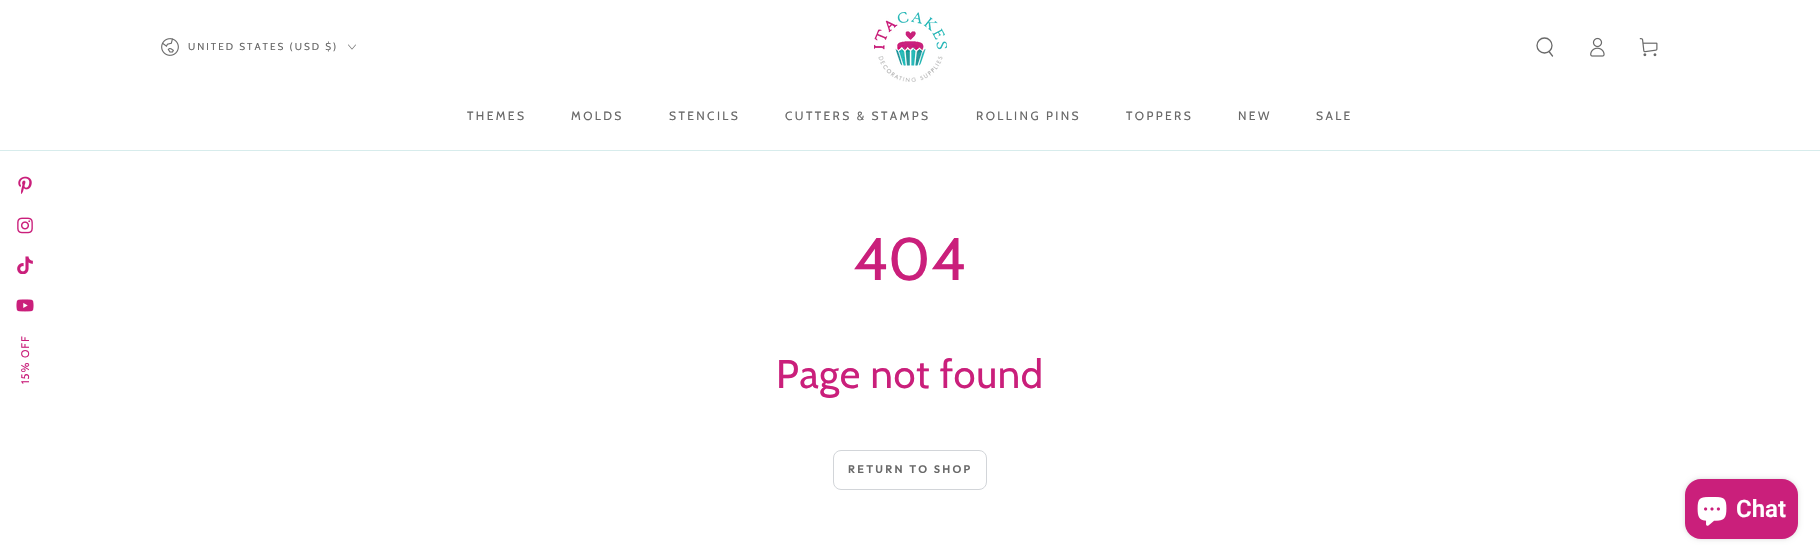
void draw(SkCanvas* canvas) {
  SkPaint paint;
  paint.setAntiAlias(true);
  auto face = [&](const char* family, int weight, float size, bool italic = false) {
    SkFontStyle style(weight, SkFontStyle::kNormal_Width,
      italic ? SkFontStyle::kItalic_Slant : SkFontStyle::kUpright_Slant);
    SkFont result(fontMgr->matchFamilyStyle(family, style), size);
    result.setSubpixel(true);
    return result;
  };
  auto writeSpaced = [&](const char* s, float x, float y, const SkFont& font, const SkPaint& ink, float letter, float word) {
    std::vector<SkGlyphID> glyphs(font.countText(s, strlen(s), SkTextEncoding::kUTF8));
    std::vector<float> xs(glyphs.size());
    font.textToGlyphs(s, strlen(s), SkTextEncoding::kUTF8, glyphs);
    font.getXPos(glyphs, xs, x);
    float extra = 0;
    for (size_t i = 0; i < glyphs.size(); i++) {
      xs[i] += extra;
      extra += letter + word * (glyphs[i] == font.unicharToGlyph(' '));
    }
    canvas->drawTextBlob(SkTextBlob::MakeFromPosHGlyphs(glyphs, xs, y, font), 0, 0, ink);
  };
  auto paste = [&](const char* path, float x, float y, float w, float h) {
    auto image = SkImages::DeferredFromEncodedData(SkData::MakeFromFileName(path));
    canvas->drawImageRect(image, SkRect::MakeXYWH(x, y, w, h), SkSamplingOptions());
  };
  auto shape = [&](const char* data, bool evenOdd = false) {
    SkPath result = *SkParsePath::FromSVGString(data);
    if (evenOdd) result.setFillType(SkPathFillType::kEvenOdd);
    return result;
  };
  canvas->clear(0xffffffff);
  paste("img/1.png", 18, 176, 14, 18);
  paste("img/2.png", 17, 217, 16, 17);
  paste("img/3.png", 17, 256, 16, 18);
  paste("img/4.png", 16, 299, 18, 13);
  paint.setColor(0xffd7ecec);
  canvas->drawRect(SkRect::MakeXYWH(0, 150, 1820, 1), paint);
  paste("img/5.png", 161, 38, 18, 18);
  paste("img/6.png", 348, 44, 8, 6);
  paste("img/7.png", 874, 12, 73, 70);
  paint.setStroke(true);
  paint.setStrokeWidth(1.3f);
  paint.setColor(0xff696969);
  canvas->drawCircle(1544.5f, 45.5f, 7.5f, paint);
  paint.setStrokeCap(SkPaint::kRound_Cap);
  canvas->drawPath(shape("M1549 51.5L1552.5 56"), paint);
  paste("img/8.png", 1590, 37, 15, 20);
  paste("img/9.png", 1639, 38, 19, 19);
  paint.setStrokeWidth(1);
  paint.setStrokeCap(SkPaint::kButt_Cap);
  paint.setColor(0xffd2d5d9);
  canvas->drawRoundRect(SkRect::MakeXYWH(833.5f, 450.5f, 153, 39), 7.5f, 7.5f, paint);
  paint.setStroke(false);
  paint.setColor(0x26000000);
  paint.setMaskFilter(SkMaskFilter::MakeBlur(kNormal_SkBlurStyle, 2.5f));
  canvas->drawRoundRect(SkRect::MakeXYWH(1685, 479, 113, 60), 16, 16, paint);
  paint.setMaskFilter(nullptr);
  paint.setColor(0xffca1f7b);
  canvas->drawRoundRect(SkRect::MakeXYWH(1685, 479, 113, 60), 16, 16, paint);
  paste("img/10.png", 1697, 497, 30, 29);
  auto f0 = face("Cabin", 400, 11);
  canvas->save();
  canvas->rotate(-90, 29, 384);
  writeSpaced("15% OFF", 29, 384, f0, paint, 1, 0);
  canvas->restore();
  auto f1 = face("Cabin", 400, 10);
  paint.setColor(0xff696969);
  writeSpaced("UNITED STATES (USD $)", 188, 50, f1, paint, 2, 0);
  auto f2 = face("Cabin", 400, 12);
  {
    const struct { const char* s; float x, y; } items[] = {
      {"THEMES", 467, 120},
      {"MOLDS", 571, 120},
      {"STENCILS", 669, 120},
      {"CUTTERS & STAMPS", 785, 120},
      {"ROLLING PINS", 976, 120},
      {"TOPPERS", 1126, 120},
      {"NEW", 1238, 120},
      {"SALE", 1316, 120},
    };
    for (auto [s, x, y] : items) {
      writeSpaced(s, x, y, f2, paint, 2.4f, 0);
    }
  }
  auto f3 = face("Cabin", 400, 60);
  paint.setColor(0xffca1f7b);
  writeSpaced("404", 853, 280, f3, paint, 0.6f, 0);
  auto f4 = face("Cabin", 400, 40);
  writeSpaced("Page not found", 776, 388, f4, paint, 0.6f, 0);
  auto f5 = face("Outfit", 600, 11);
  paint.setColor(0xff696969);
  writeSpaced("RETURN TO SHOP", 848, 473, f5, paint, 2.25f, 0);
  auto f6 = face("Roboto", 600, 24);
  paint.setColor(0xffffffff);
  canvas->drawString("Chat", 1736, 517, f6, paint);
}
